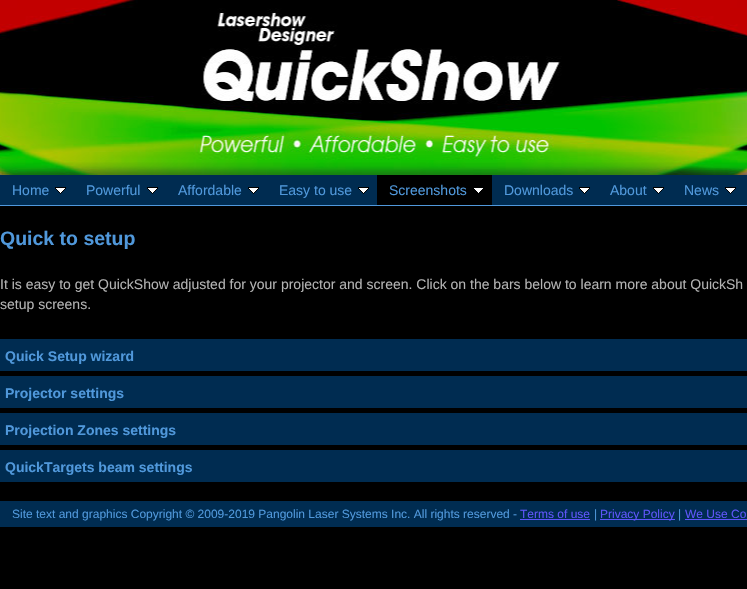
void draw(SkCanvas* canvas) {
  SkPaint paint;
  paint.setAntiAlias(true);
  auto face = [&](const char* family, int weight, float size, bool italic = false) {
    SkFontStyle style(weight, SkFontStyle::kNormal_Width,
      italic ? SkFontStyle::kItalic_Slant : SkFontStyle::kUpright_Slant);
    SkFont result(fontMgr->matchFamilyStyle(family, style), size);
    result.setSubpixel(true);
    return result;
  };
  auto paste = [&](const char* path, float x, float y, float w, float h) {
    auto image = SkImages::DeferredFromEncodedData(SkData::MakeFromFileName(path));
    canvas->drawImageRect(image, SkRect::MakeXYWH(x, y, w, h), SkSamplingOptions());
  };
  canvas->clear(0xff000000);
  paste("img/1.png", 0, 0, 747, 175);
  paste("img/2.png", 0, 162, 747, 13);
  paint.setColor(0xff002c51);
  canvas->drawRect(SkRect::MakeXYWH(0, 175, 747, 30), paint);
  paint.setColor(0xff5098db);
  canvas->drawRect(SkRect::MakeXYWH(0, 205, 747, 1), paint);
  paste("img/3.png", 55, 187, 11, 7);
  paste("img/3.png", 147, 187, 11, 7);
  paste("img/3.png", 248, 187, 11, 7);
  paste("img/3.png", 358, 187, 11, 7);
  paint.setColor(0xff000000);
  canvas->drawRect(SkRect::MakeXYWH(377, 175, 115, 30), paint);
  paste("img/4.png", 474, 188, 9, 5);
  paste("img/3.png", 579, 187, 11, 7);
  paste("img/3.png", 653, 187, 11, 7);
  paste("img/3.png", 725, 187, 11, 7);
  {
    const struct { float x, y, w, h; SkColor color; } items[] = {
      {0, 339, 747, 32, 0xff002c51},
      {0, 376, 747, 32, 0xff002c51},
      {0, 413, 747, 32, 0xff002c51},
      {0, 450, 747, 32, 0xff002c51},
      {0, 501, 747, 26, 0xff002c51},
      {520, 519, 70, 1, 0xff5e55f8},
      {600, 519, 75, 1, 0xff5e55f8},
      {685, 519, 62, 1, 0xff5e55f8},
    };
    for (auto [x, y, w, h, color] : items) {
      paint.setColor(color);
      canvas->drawRect(SkRect::MakeXYWH(x, y, w, h), paint);
    }
  }
  auto f0 = face("Liberation Sans", 400, 14);
  paint.setColor(0xff5098db);
  {
    const struct { const char* s; float x, y; } items[] = {
      {"Home", 12, 195},
      {"Powerful", 86, 195},
      {"Affordable", 178, 195},
      {"Easy to use", 279, 195},
      {"Screenshots", 389, 195},
      {"Downloads", 504, 195},
      {"About", 610, 195},
      {"News", 684, 195},
    };
    for (auto [s, x, y] : items) {
      canvas->drawString(s, x, y, f0, paint);
    }
  }
  auto f1 = face("Liberation Sans", 700, 19.5f);
  canvas->drawString("Quick to setup", 0, 245, f1, paint);
  paint.setColor(0xffb3b3b3);
  canvas->drawString("It is easy to get QuickShow adjusted for your projector and screen. Click on the bars below to learn more about QuickSh", 0, 289, f0, paint);
  canvas->drawString("setup screens.", 0, 309, f0, paint);
  auto f2 = face("Liberation Sans", 700, 14);
  paint.setColor(0xff5098db);
  {
    const struct { const char* s; float x, y; } items[] = {
      {"Quick Setup wizard", 5, 361},
      {"Projector settings", 5, 398},
      {"Projection Zones settings", 5, 435},
      {"QuickTargets beam settings", 5, 472},
    };
    for (auto [s, x, y] : items) {
      canvas->drawString(s, x, y, f2, paint);
    }
  }
  auto f3 = face("Liberation Sans", 400, 12);
  canvas->drawString("Site text and graphics Copyright © 2009-2019 Pangolin Laser Systems Inc. All rights reserved -", 12, 518, f3, paint);
  paint.setColor(0xff5e55f8);
  canvas->drawString("Terms of use", 520, 518, f3, paint);
  paint.setColor(0xff5098db);
  canvas->drawString("|", 594, 518, f3, paint);
  paint.setColor(0xff5e55f8);
  canvas->drawString("Privacy Policy", 600, 518, f3, paint);
  paint.setColor(0xff5098db);
  canvas->drawString("|", 678, 518, f3, paint);
  paint.setColor(0xff5e55f8);
  canvas->drawString("We Use Co", 685, 518, f3, paint);
}
